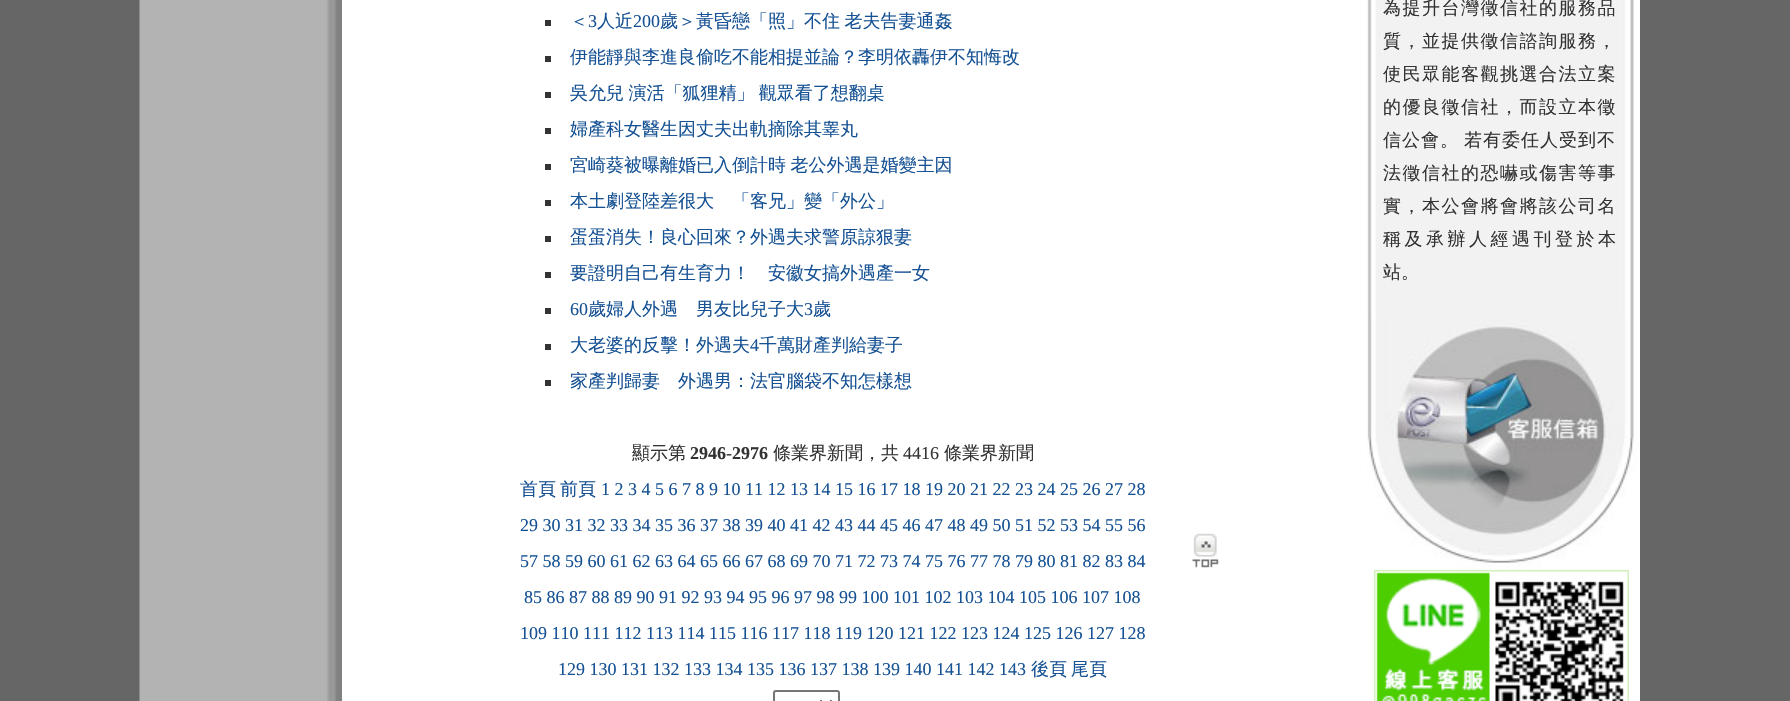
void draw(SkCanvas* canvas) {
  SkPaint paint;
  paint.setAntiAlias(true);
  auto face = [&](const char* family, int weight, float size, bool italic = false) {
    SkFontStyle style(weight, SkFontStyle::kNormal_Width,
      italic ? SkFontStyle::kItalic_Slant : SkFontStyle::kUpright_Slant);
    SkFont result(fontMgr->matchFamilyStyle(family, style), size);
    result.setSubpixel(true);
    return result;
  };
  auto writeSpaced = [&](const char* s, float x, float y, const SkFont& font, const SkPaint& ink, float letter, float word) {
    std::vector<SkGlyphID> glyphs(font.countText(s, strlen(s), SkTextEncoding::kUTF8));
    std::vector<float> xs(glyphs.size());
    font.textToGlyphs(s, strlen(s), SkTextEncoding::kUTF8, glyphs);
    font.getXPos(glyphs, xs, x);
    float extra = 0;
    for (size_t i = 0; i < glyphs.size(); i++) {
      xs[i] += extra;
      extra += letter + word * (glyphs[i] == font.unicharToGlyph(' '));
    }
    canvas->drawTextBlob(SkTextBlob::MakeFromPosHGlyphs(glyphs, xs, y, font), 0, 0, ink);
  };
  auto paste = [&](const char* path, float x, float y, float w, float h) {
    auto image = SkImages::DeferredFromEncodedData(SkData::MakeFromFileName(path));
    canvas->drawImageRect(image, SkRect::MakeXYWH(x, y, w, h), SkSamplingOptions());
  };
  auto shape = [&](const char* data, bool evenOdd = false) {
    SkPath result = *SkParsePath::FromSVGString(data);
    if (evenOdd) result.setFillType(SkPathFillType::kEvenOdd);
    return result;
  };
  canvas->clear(0xff666666);
  paint.setColor(0xffffffff);
  canvas->drawRect(SkRect::MakeXYWH(342, 0, 1298, 701), paint);
  paste("img/1.png", 139, 0, 203, 701);
  {
    const struct { float x, y, w, h; SkColor color; } items[] = {
      {545, 20, 6, 6, 0xff333333},
      {545, 56, 6, 6, 0xff333333},
      {545, 92, 6, 6, 0xff333333},
      {545, 128, 6, 6, 0xff333333},
      {545, 164, 6, 6, 0xff333333},
      {545, 200, 6, 6, 0xff333333},
      {545, 236, 6, 6, 0xff333333},
      {545, 272, 6, 6, 0xff333333},
      {545, 308, 6, 6, 0xff333333},
      {545, 344, 6, 6, 0xff333333},
      {545, 380, 6, 6, 0xff333333},
    };
    for (auto [x, y, w, h, color] : items) {
      paint.setColor(color);
      canvas->drawRect(SkRect::MakeXYWH(x, y, w, h), paint);
    }
  }
  paint.setStroke(true);
  paint.setStrokeWidth(2);
  paint.setColor(0xff767676);
  canvas->drawRoundRect(SkRect::MakeXYWH(774, 691, 65, 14), 2, 2, paint);
  paint.setStrokeWidth(3);
  paint.setColor(0xff000000);
  canvas->drawPath(shape("M820 701L826 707L832 701"), paint);
  paste("img/2.png", 1367, 0, 267, 318);
  paste("img/3.png", 1367, 318, 271, 252);
  paste("img/4.png", 1374, 570, 255, 131);
  paste("img/5.png", 1192, 533, 27, 35);
  auto f0 = face("WenQuanYi Zen Hei", 500, 18);
  paint.setStroke(false);
  paint.setColor(0xff165294);
  canvas->drawString("＜", 570, 27, f0, paint);
  auto f1 = face("Liberation Serif", 400, 18);
  canvas->drawString("3", 588, 27, f1, paint);
  canvas->drawString("人近", 597, 27, f0, paint);
  canvas->drawString("200", 633, 27, f1, paint);
  writeSpaced("歲＞黃昏戀「照」不住 老夫告妻通姦", 660, 27, f0, paint, 0, -1);
  canvas->drawString("伊能靜與李進良偷吃不能相提並論？李明依轟伊不知悔改", 570, 63, f0, paint);
  writeSpaced("吳允兒 演活「狐狸精」 觀眾看了想翻桌", 570, 99, f0, paint, 0, -1);
  canvas->drawString("婦產科女醫生因丈夫出軌摘除其睾丸", 570, 135, f0, paint);
  writeSpaced("宮崎葵被曝離婚已入倒計時 老公外遇是婚變主因", 570, 171, f0, paint, 0, -1);
  {
    const struct { const char* s; float x, y; } items[] = {
      {"本土劇登陸差很大　「客兄」變「外公」", 570, 207},
      {"蛋蛋消失！良心回來？外遇夫求警原諒狠妻", 570, 243},
      {"要證明自己有生育力！　安徽女搞外遇產一女", 570, 279},
    };
    for (auto [s, x, y] : items) {
      canvas->drawString(s, x, y, f0, paint);
    }
  }
  canvas->drawString("60", 570, 315, f1, paint);
  canvas->drawString("歲婦人外遇　男友比兒子大", 588, 315, f0, paint);
  canvas->drawString("3", 804, 315, f1, paint);
  canvas->drawString("歲", 813, 315, f0, paint);
  canvas->drawString("大老婆的反擊！外遇夫", 570, 351, f0, paint);
  canvas->drawString("4", 750, 351, f1, paint);
  canvas->drawString("千萬財產判給妻子", 759, 351, f0, paint);
  canvas->drawString("家產判歸妻　外遇男：法官腦袋不知怎樣想", 570, 387, f0, paint);
  paint.setColor(0xff333333);
  canvas->drawString("顯示第", 632, 459, f0, paint);
  auto f2 = face("Liberation Serif", 700, 18);
  canvas->drawString("2946", 690, 459, f2, paint);
  canvas->drawString("-", 726, 459, f1, paint);
  canvas->drawString("2976", 732, 459, f2, paint);
  canvas->drawString("條業界新聞，共", 773, 459, f0, paint);
  canvas->drawString("4416", 903, 459, f1, paint);
  canvas->drawString("條業界新聞", 944, 459, f0, paint);
  paint.setColor(0xff165294);
  canvas->drawString("首頁", 520, 495, f0, paint);
  canvas->drawString("前頁", 560, 495, f0, paint);
  {
    const struct { const char* s; float x, y; } items[] = {
      {"1 2 3 4 5 6 7 8 9 10 11 12 13 14 15 16 17 18 19 20 21 22 23 24 25 26 27 28", 601, 495},
      {"29 30 31 32 33 34 35 36 37 38 39 40 41 42 43 44 45 46 47 48 49 50 51 52 53 54 55 56", 520, 531},
      {"57 58 59 60 61 62 63 64 65 66 67 68 69 70 71 72 73 74 75 76 77 78 79 80 81 82 83 84", 520, 567},
      {"85 86 87 88 89 90 91 92 93 94 95 96 97 98 99 100 101 102 103 104 105 106 107 108", 524, 603},
      {"109 110 111 112 113 114 115 116 117 118 119 120 121 122 123 124 125 126 127 128", 520, 639},
      {"129 130 131 132 133 134 135 136 137 138 139 140 141 142 143", 558, 675},
    };
    for (auto [s, x, y] : items) {
      canvas->drawString(s, x, y, f1, paint);
    }
  }
  canvas->drawString("後頁", 1031, 675, f0, paint);
  canvas->drawString("尾頁", 1071, 675, f0, paint);
  paint.setColor(0xff333333);
  {
    const struct { const char* s; float x, y; } items[] = {
      {"為提升台灣徵信社的服務品", 1383, 14},
      {"質，並提供徵信諮詢服務，", 1383, 47},
      {"使民眾能客觀挑選合法立案", 1383, 80},
      {"的優良徵信社，而設立本徵", 1383, 113},
    };
    for (auto [s, x, y] : items) {
      writeSpaced(s, x, y, f0, paint, 1.5f, 0);
    }
  }
  writeSpaced("信公會。", 1383, 146, f0, paint, 1, 0);
  writeSpaced("若有委任人受到不", 1464, 146, f0, paint, 1, 0);
  writeSpaced("法徵信社的恐嚇或傷害等事", 1383, 179, f0, paint, 1.5f, 0);
  writeSpaced("實，本公會將會將該公司名", 1383, 212, f0, paint, 1.5f, 0);
  writeSpaced("稱及承辦人經遇刊登於本", 1383, 245, f0, paint, 3.5f, 0);
  canvas->drawString("站。", 1383, 278, f0, paint);
}
